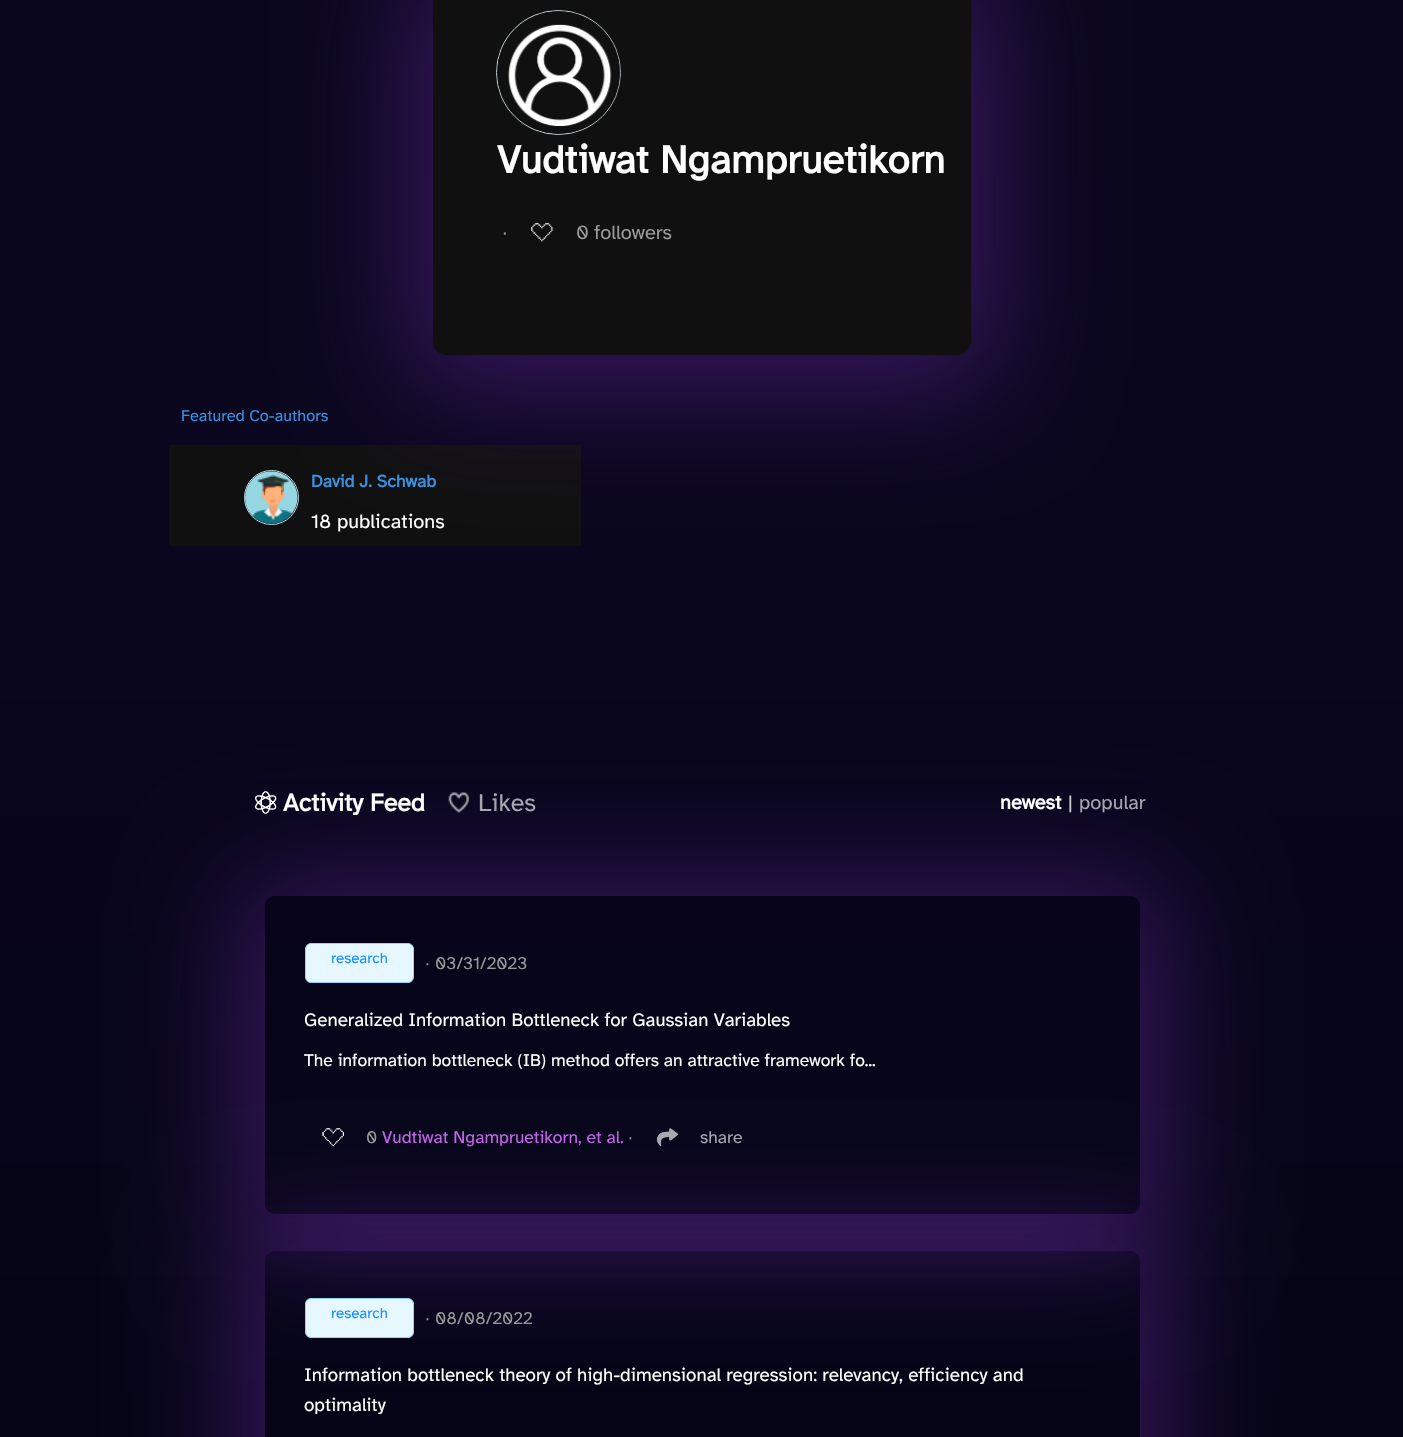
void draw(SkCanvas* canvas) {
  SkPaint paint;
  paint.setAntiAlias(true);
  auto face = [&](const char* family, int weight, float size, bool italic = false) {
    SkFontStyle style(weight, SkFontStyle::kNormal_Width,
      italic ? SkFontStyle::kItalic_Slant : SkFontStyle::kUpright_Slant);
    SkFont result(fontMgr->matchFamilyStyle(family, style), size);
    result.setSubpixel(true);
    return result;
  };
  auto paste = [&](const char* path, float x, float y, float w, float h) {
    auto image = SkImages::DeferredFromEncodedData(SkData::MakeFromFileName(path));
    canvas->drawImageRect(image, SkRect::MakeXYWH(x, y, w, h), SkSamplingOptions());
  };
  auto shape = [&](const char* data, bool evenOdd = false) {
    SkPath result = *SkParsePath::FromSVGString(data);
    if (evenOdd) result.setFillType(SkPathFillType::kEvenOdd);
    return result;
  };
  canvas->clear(0xffffffff);
  {
    const SkColor colors[] = {0xff7729aa, 0xff170a2d, 0xff0a061d, 0xff0a061e, 0xff010311};
    const float stops[] = {0, 0.12f, 0.18f, 0.44f, 0.99f};
    const SkPoint ends[] = {{702, -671}, {702, 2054}};
    paint.setShader(SkGradientShader::MakeLinear(ends, colors, stops, 5, SkTileMode::kClamp));
    paint.setAlpha(255);
  }
  canvas->drawRect(SkRect::MakeXYWH(0, 0, 1403, 1437), paint);
  paint.setShader(nullptr);
  paint.setColor(0xff101010);
  canvas->drawRect(SkRect::MakeXYWH(169, 445, 412, 101), paint);
  paint.setStroke(true);
  paint.setStrokeWidth(1);
  paint.setColor(0xffc2d1d9);
  canvas->drawCircle(271.5f, 497.5f, 27, paint);
  paste("img/3.png", 245, 471, 53, 53);
  paint.setStroke(false);
  paint.setColor(0xb3471c73);
  paint.setMaskFilter(SkMaskFilter::MakeBlur(kNormal_SkBlurStyle, 57.5f));
  canvas->drawRoundRect(SkRect::MakeXYWH(408, -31, 588, 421), 38, 38, paint);
  paint.setMaskFilter(nullptr);
  paint.setColor(0xff101010);
  canvas->drawRoundRect(SkRect::MakeXYWH(433.5f, -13.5f, 537, 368), 12.5f, 12.5f, paint);
  paint.setStroke(true);
  canvas->drawRoundRect(SkRect::MakeXYWH(433.5f, -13.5f, 537, 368), 12.5f, 12.5f, paint);
  paint.setColor(0xffc2d1d9);
  canvas->drawCircle(558.5f, 72.5f, 62, paint);
  paste("img/1.png", 497, 11, 124, 123);
  paste("img/2.png", 531, 223, 23, 19);
  canvas->save();
  canvas->clipPath(shape("M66 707H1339V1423H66ZM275 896H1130C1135.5 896 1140 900.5 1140 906V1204C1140 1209.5 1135.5 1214 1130 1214H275C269.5 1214 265 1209.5 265 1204V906C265 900.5 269.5 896 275 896Z", true), true);
  paint.setStroke(false);
  paint.setColor(0xb3471c73);
  paint.setMaskFilter(SkMaskFilter::MakeBlur(kNormal_SkBlurStyle, 57.5f));
  canvas->drawRoundRect(SkRect::MakeXYWH(240, 881, 925, 368), 35, 35, paint);
  paint.setMaskFilter(nullptr);
  canvas->restore();
  paste("img/4.png", 255, 791, 22, 23);
  paste("img/5.png", 448, 792, 21, 21);
  paint.setColor(0xffe6f7ff);
  canvas->drawRoundRect(SkRect::MakeXYWH(305.5f, 943.5f, 108, 39), 5.5f, 5.5f, paint);
  paint.setStroke(true);
  paint.setColor(0xff91d5ff);
  canvas->drawRoundRect(SkRect::MakeXYWH(305.5f, 943.5f, 108, 39), 5.5f, 5.5f, paint);
  canvas->save();
  canvas->clipPath(shape("M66 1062H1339V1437H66ZM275 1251H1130C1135.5 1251 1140 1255.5 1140 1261V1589C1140 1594.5 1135.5 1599 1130 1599H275C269.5 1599 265 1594.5 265 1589V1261C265 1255.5 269.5 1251 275 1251Z", true), true);
  paint.setStroke(false);
  paint.setColor(0xb3471c73);
  paint.setMaskFilter(SkMaskFilter::MakeBlur(kNormal_SkBlurStyle, 57.5f));
  canvas->drawRoundRect(SkRect::MakeXYWH(240, 1236, 925, 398), 35, 35, paint);
  paint.setMaskFilter(nullptr);
  canvas->restore();
  paste("img/6.png", 322, 1128, 22, 19);
  paste("img/7.png", 656, 1128, 23, 18);
  paint.setColor(0xffe6f7ff);
  canvas->drawRoundRect(SkRect::MakeXYWH(305.5f, 1298.5f, 108, 39), 5.5f, 5.5f, paint);
  paint.setStroke(true);
  paint.setColor(0xff91d5ff);
  canvas->drawRoundRect(SkRect::MakeXYWH(305.5f, 1298.5f, 108, 39), 5.5f, 5.5f, paint);
  auto f0 = face("Atkinson Hyperlegible", 700, 40);
  paint.setStroke(false);
  paint.setColor(0xffffffff);
  canvas->drawString("Vudtiwat Ngampruetikorn", 497, 173, f0, paint);
  auto f1 = face("Liberation Sans", 400, 20);
  paint.setColor(0xff999999);
  canvas->drawString("∙", 502, 239, f1, paint);
  auto f2 = face("Atkinson Hyperlegible", 400, 20);
  canvas->drawString("0", 576, 239, f2, paint);
  canvas->drawString("followers", 594, 239, f2, paint);
  auto f3 = face("Atkinson Hyperlegible", 400, 16.25f);
  paint.setColor(0xff3a90e0);
  canvas->drawString("Featured Co-authors", 181, 421, f3, paint);
  auto f4 = face("Atkinson Hyperlegible", 700, 17.5f);
  canvas->drawString("David J. Schwab", 311, 487, f4, paint);
  paint.setColor(0xffffffff);
  canvas->drawString("18 publications", 311, 528, f2, paint);
  auto f5 = face("Atkinson Hyperlegible", 700, 25);
  canvas->drawString("Activity Feed", 283, 811, f5, paint);
  auto f6 = face("Atkinson Hyperlegible", 400, 25);
  paint.setColor(0xffa7a5af);
  canvas->drawString("Likes", 478, 811, f6, paint);
  auto f7 = face("Atkinson Hyperlegible", 700, 20);
  paint.setColor(0xffffffff);
  canvas->drawString("newest", 1000, 809, f7, paint);
  paint.setColor(0xffcecdd3);
  canvas->drawString("|", 1068, 809, f2, paint);
  paint.setColor(0xffa7a5af);
  canvas->drawString("popular", 1079, 809, f2, paint);
  auto f8 = face("Atkinson Hyperlegible", 400, 15);
  paint.setColor(0xff1890ff);
  canvas->drawString("research", 331, 963, f8, paint);
  auto f9 = face("Liberation Sans", 400, 17.5f);
  paint.setColor(0xff999999);
  canvas->drawString("∙", 425, 969, f9, paint);
  auto f10 = face("Atkinson Hyperlegible", 400, 17.5f);
  canvas->drawString("03/31/2023", 435, 969, f10, paint);
  auto f11 = face("Atkinson Hyperlegible", 400, 18.75f);
  paint.setColor(0xffffffff);
  canvas->drawString("Generalized Information Bottleneck for Gaussian Variables", 304, 1026, f11, paint);
  canvas->drawString("The information bottleneck (IB) method offers an attractive framework fo...", 304, 1066, f10, paint);
  paint.setColor(0xff999999);
  canvas->drawString("0", 366, 1143, f10, paint);
  paint.setColor(0xffc764ec);
  canvas->drawString("Vudtiwat Ngampruetikorn, et al.", 382, 1143, f10, paint);
  paint.setColor(0xff999999);
  canvas->drawString("∙", 628, 1143, f9, paint);
  paint.setColor(0xffa7a5af);
  canvas->drawString("share", 700, 1143, f10, paint);
  paint.setColor(0xff1890ff);
  canvas->drawString("research", 331, 1318, f8, paint);
  paint.setColor(0xff999999);
  canvas->drawString("∙", 425, 1324, f9, paint);
  canvas->drawString("08/08/2022", 435, 1324, f10, paint);
  paint.setColor(0xffffffff);
  canvas->drawString("Information bottleneck theory of high-dimensional regression: relevancy, efficiency and", 304, 1381, f11, paint);
  canvas->drawString("optimality", 304, 1411, f11, paint);
}
